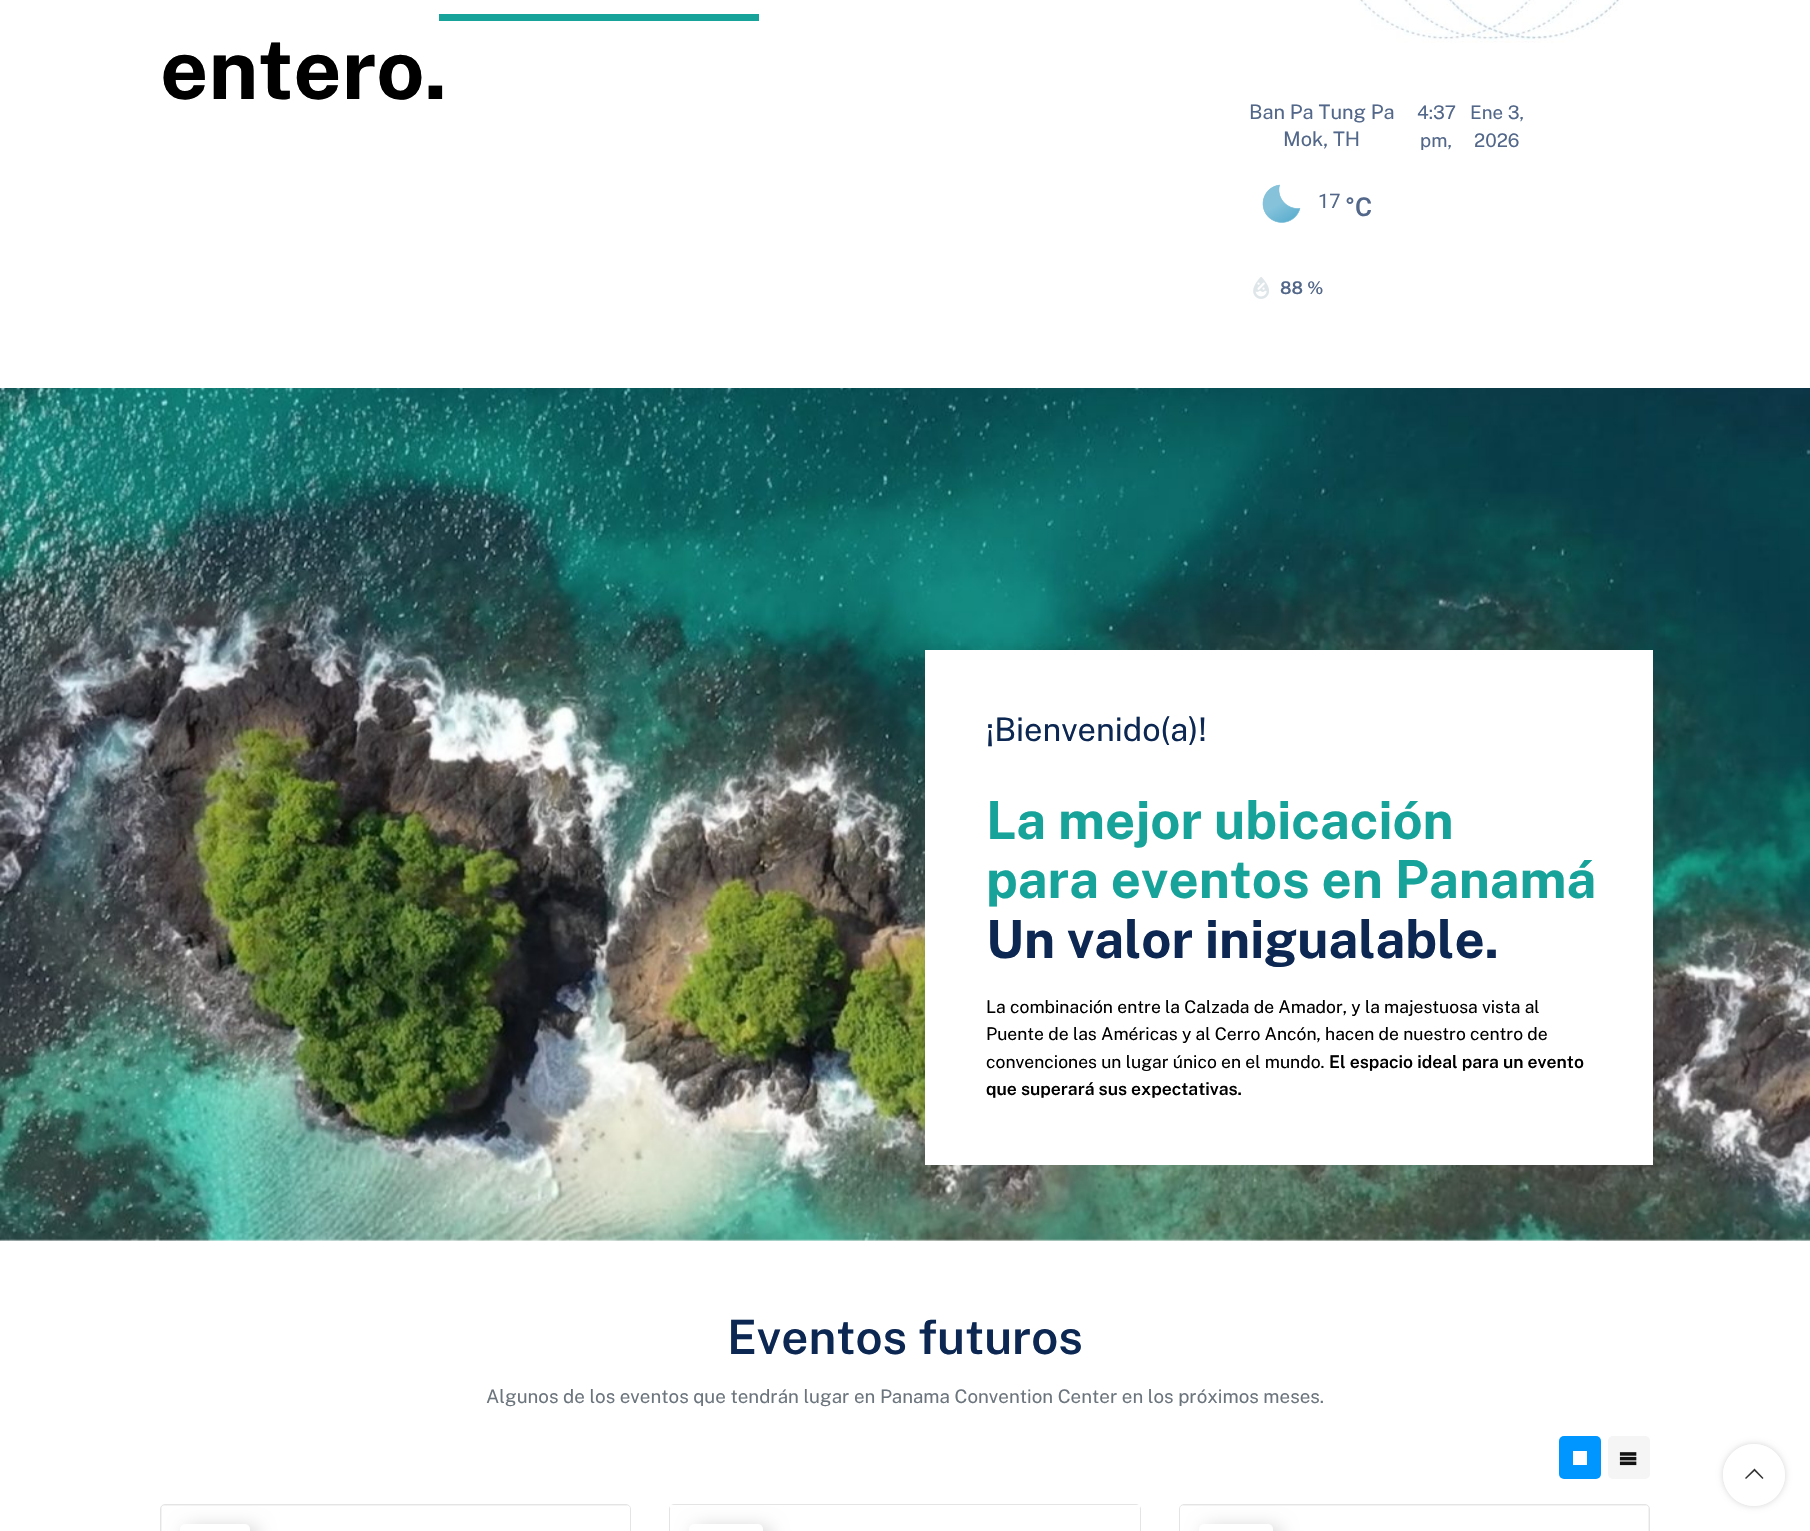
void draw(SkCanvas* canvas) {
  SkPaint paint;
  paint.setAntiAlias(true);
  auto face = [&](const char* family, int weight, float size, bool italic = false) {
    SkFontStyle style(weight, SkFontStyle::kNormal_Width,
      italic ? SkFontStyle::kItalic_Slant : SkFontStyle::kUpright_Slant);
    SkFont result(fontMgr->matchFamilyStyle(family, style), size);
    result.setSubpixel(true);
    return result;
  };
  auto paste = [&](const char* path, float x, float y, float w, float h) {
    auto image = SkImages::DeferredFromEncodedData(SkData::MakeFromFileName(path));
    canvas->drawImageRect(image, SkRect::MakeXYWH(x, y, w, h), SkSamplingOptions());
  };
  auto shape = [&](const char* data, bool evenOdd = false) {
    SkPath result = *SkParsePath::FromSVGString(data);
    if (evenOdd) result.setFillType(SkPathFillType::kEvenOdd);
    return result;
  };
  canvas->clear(0xffffffff);
  paint.setColor(0xff18a39a);
  canvas->drawRect(SkRect::MakeXYWH(439, 14, 320, 7), paint);
  paste("img/1.png", 1359, 0, 264, 43);
  paste("img/2.png", 1262, 184, 39, 39);
  paste("img/3.png", 1253, 277, 16, 22);
  paste("img/4.png", 0, 388, 1810, 853);
  paint.setColor(0xffffffff);
  canvas->drawRect(SkRect::MakeXYWH(925, 650, 728, 515), paint);
  paint.setColor(0xff0096ff);
  canvas->drawRoundRect(SkRect::MakeXYWH(1559, 1436, 42, 43), 5, 5, paint);
  paint.setColor(0xffffffff);
  canvas->drawRect(SkRect::MakeXYWH(1573, 1451, 14, 14), paint);
  paint.setColor(0xfff5f5f5);
  canvas->drawRoundRect(SkRect::MakeXYWH(1608, 1436, 42, 43), 5, 5, paint);
  paste("img/5.png", 1619, 1452, 18, 14);
  paint.setStroke(true);
  paint.setStrokeWidth(1);
  paint.setColor(0xffe4e4e4);
  canvas->drawRoundRect(SkRect::MakeXYWH(160.5f, 1504.5f, 470, 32), 4.5f, 4.5f, paint);
  paint.setStroke(false);
  canvas->drawPath(shape("M165 1505H626C628 1505 630 1507 630 1509V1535H161V1509C161 1507 163 1505 165 1505Z"), paint);
  paste("img/6.png", 161, 1505, 469, 26);
  paint.setColor(0x33000000);
  paint.setMaskFilter(SkMaskFilter::MakeBlur(kNormal_SkBlurStyle, 9.5f));
  canvas->drawRoundRect(SkRect::MakeXYWH(186, 1528, 70, 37), 5, 5, paint);
  paint.setMaskFilter(nullptr);
  paint.setColor(0xffffffff);
  canvas->drawRoundRect(SkRect::MakeXYWH(180, 1524, 70, 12), 5, 5, paint);
  paint.setStroke(true);
  paint.setColor(0xffe4e4e4);
  canvas->drawRoundRect(SkRect::MakeXYWH(669.5f, 1504.5f, 471, 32), 4.5f, 4.5f, paint);
  paint.setStroke(false);
  paint.setColor(0xffffffff);
  canvas->drawRect(SkRect::MakeXYWH(670, 1505, 470, 3), paint);
  paint.setColor(0x33000000);
  paint.setMaskFilter(SkMaskFilter::MakeBlur(kNormal_SkBlurStyle, 9.5f));
  canvas->drawRoundRect(SkRect::MakeXYWH(695, 1528, 74, 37), 5, 5, paint);
  paint.setMaskFilter(nullptr);
  paint.setColor(0xffffffff);
  canvas->drawRoundRect(SkRect::MakeXYWH(689, 1524, 74, 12), 5, 5, paint);
  paint.setStroke(true);
  paint.setColor(0xffe4e4e4);
  canvas->drawRoundRect(SkRect::MakeXYWH(1179.5f, 1504.5f, 470, 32), 4.5f, 4.5f, paint);
  paint.setStroke(false);
  canvas->drawPath(shape("M1184 1505H1645C1647 1505 1649 1507 1649 1509V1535H1180V1509C1180 1507 1182 1505 1184 1505Z"), paint);
  paste("img/7.png", 1180, 1505, 469, 26);
  paint.setColor(0x33000000);
  paint.setMaskFilter(SkMaskFilter::MakeBlur(kNormal_SkBlurStyle, 9.5f));
  canvas->drawRoundRect(SkRect::MakeXYWH(1205, 1528, 74, 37), 5, 5, paint);
  paint.setMaskFilter(nullptr);
  paint.setColor(0xffffffff);
  canvas->drawRoundRect(SkRect::MakeXYWH(1199, 1524, 74, 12), 5, 5, paint);
  canvas->save();
  canvas->clipPath(shape("M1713 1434H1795V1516H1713ZM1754 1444C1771 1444 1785 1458 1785 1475C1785 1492 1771 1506 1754 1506C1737 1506 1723 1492 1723 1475C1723 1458 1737 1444 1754 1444Z", true), true);
  paint.setColor(0x2b000000);
  paint.setMaskFilter(SkMaskFilter::MakeBlur(kNormal_SkBlurStyle, 3));
  canvas->drawRoundRect(SkRect::MakeXYWH(1723, 1444, 62, 62), 31, 31, paint);
  paint.setMaskFilter(nullptr);
  canvas->restore();
  paint.setColor(0xe6ffffff);
  canvas->drawCircle(1754, 1475, 31, paint);
  paint.setColor(0xff333333);
  canvas->drawPath(shape("M1762.5 1479L1763.5 1478L1754.5 1468.5L1745 1478L1746 1479L1754.5 1471Z"), paint);
  auto f0 = face("Public Sans", 700, 84);
  paint.setColor(0xff000000);
  canvas->drawString("entero.", 160, 99, f0, paint);
  auto f1 = face("Public Sans", 400, 20);
  paint.setColor(0xff526789);
  canvas->drawString("Ban Pa Tung Pa", 1249, 119, f1, paint);
  canvas->drawString("Mok, TH", 1283, 146, f1, paint);
  auto f2 = face("Public Sans", 400, 18.75f);
  {
    const struct { const char* s; float x, y; } items[] = {
      {"4:37", 1417, 119},
      {"pm,", 1420, 147},
      {"Ene 3,", 1470, 119},
      {"2026", 1474, 147},
    };
    for (auto [s, x, y] : items) {
      canvas->drawString(s, x, y, f2, paint);
    }
  }
  auto f3 = face("Roboto", 400, 20);
  canvas->drawString("17", 1318, 208, f3, paint);
  auto f4 = face("Roboto", 500, 26);
  canvas->drawString("°C", 1345, 216, f4, paint);
  auto f5 = face("Public Sans", 600, 17.5f);
  canvas->drawString("88 %", 1280, 294, f5, paint);
  auto f6 = face("Public Sans", 400, 32.5f);
  paint.setColor(0xff0c2752);
  canvas->drawString("¡Bienvenido(a)!", 986, 741, f6, paint);
  auto f7 = face("Public Sans", 700, 52.5f);
  paint.setColor(0xff18a39a);
  canvas->drawString("La mejor ubicación", 986, 839, f7, paint);
  canvas->drawString("para eventos en Panamá", 986, 898, f7, paint);
  paint.setColor(0xff0c2752);
  canvas->drawString("Un valor inigualable.", 986, 958, f7, paint);
  auto f8 = face("Public Sans", 400, 17.5f);
  paint.setColor(0xff000000);
  {
    const struct { const char* s; float x, y; } items[] = {
      {"La combinación entre la Calzada de Amador, y la majestuosa vista al", 986, 1013},
      {"Puente de las Américas y al Cerro Ancón, hacen de nuestro centro de", 986, 1040},
      {"convenciones un lugar único en el mundo.", 986, 1068},
    };
    for (auto [s, x, y] : items) {
      canvas->drawString(s, x, y, f8, paint);
    }
  }
  canvas->drawString("El espacio ideal para un evento", 1329, 1068, f5, paint);
  canvas->drawString("que superará sus expectativas.", 986, 1095, f5, paint);
  auto f9 = face("Public Sans", 600, 47.5f);
  paint.setColor(0xff0c2752);
  canvas->drawString("Eventos futuros", 727, 1354, f9, paint);
  paint.setColor(0xff6c757d);
  canvas->drawString("Algunos de los eventos que tendrán lugar en Panama Convention Center en los próximos meses.", 486, 1403, f2, paint);
}
